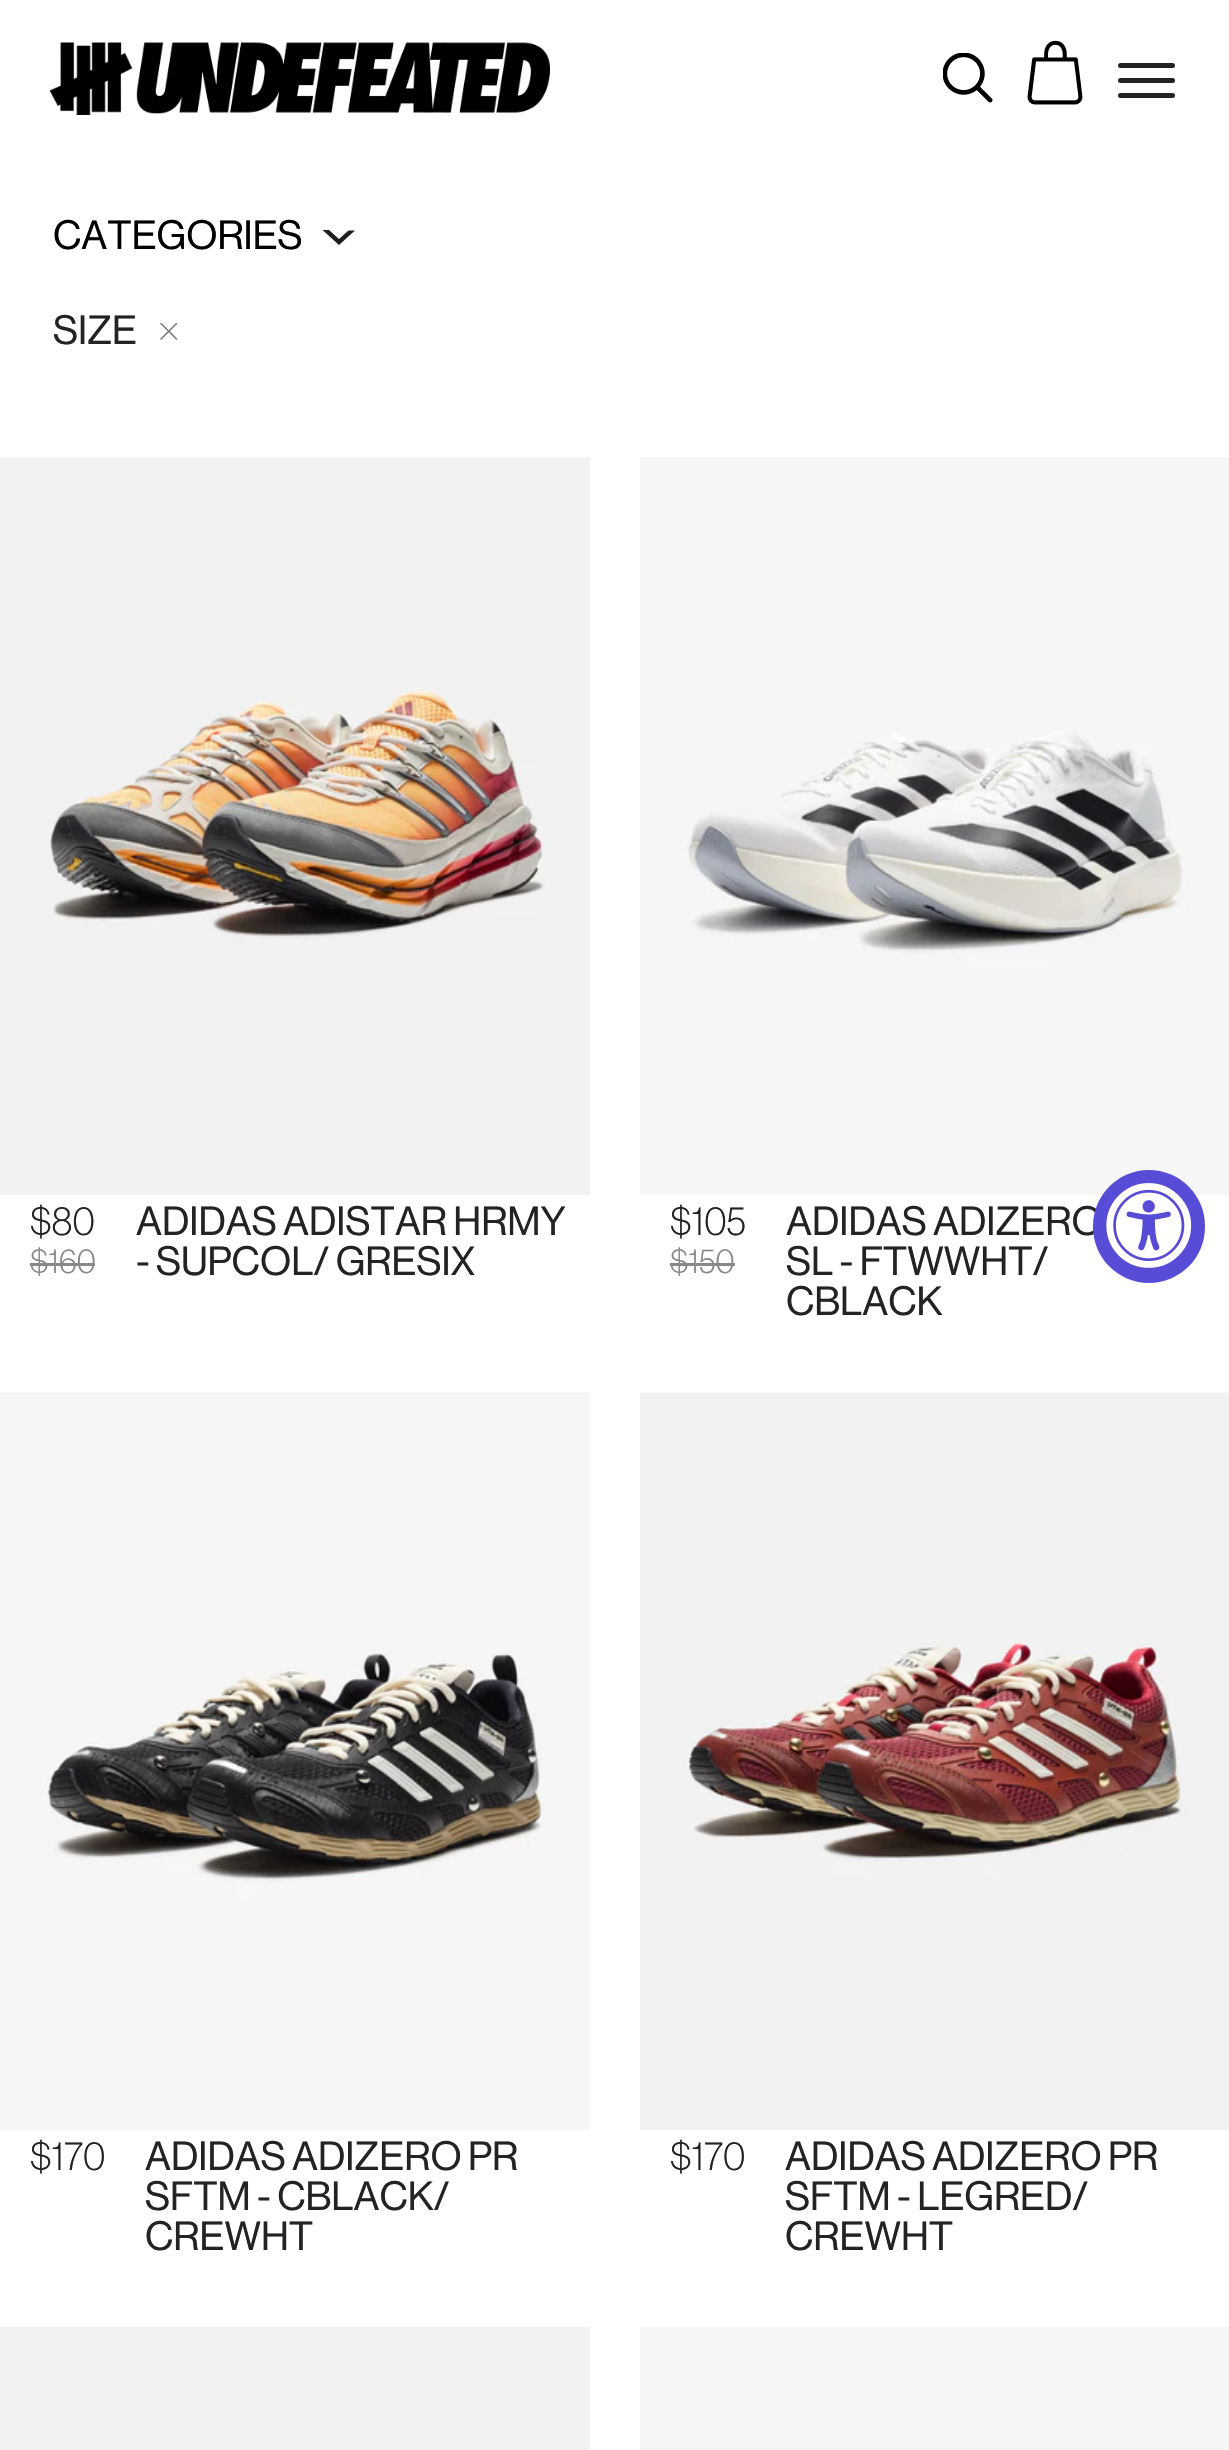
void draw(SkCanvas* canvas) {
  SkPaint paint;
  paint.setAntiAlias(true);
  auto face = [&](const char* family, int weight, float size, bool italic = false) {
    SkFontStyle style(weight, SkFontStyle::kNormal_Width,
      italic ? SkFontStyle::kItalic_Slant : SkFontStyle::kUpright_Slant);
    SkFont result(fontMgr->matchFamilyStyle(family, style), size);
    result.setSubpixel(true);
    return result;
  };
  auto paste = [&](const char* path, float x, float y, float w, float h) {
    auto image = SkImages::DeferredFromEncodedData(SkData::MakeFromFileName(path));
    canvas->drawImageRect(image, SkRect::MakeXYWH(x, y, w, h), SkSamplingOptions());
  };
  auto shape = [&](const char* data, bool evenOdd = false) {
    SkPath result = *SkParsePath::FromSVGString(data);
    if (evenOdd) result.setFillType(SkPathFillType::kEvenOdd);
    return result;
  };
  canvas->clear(0xffffffff);
  paste("img/1.png", 50, 42, 500, 73);
  paste("img/2.png", 943, 53, 50, 50);
  paste("img/3.png", 1027, 40, 56, 65);
  paint.setColor(0xff222323);
  canvas->drawRoundRect(SkRect::MakeXYWH(1118, 63, 57, 5), 2.5f, 2.5f, paint);
  canvas->drawRoundRect(SkRect::MakeXYWH(1118, 78, 57, 5), 2.5f, 2.5f, paint);
  canvas->drawRoundRect(SkRect::MakeXYWH(1118, 93, 57, 5), 2.5f, 2.5f, paint);
  paint.setColor(0xff1d1d1b);
  canvas->drawPath(shape("M329 230H322.5L339 245L355 230.5H348.5L339 239Z", true), paint);
  paste("img/4.png", 160, 323, 18, 17);
  paste("img/5.png", 0, 457, 590, 738);
  paint.setColor(0xff888888);
  canvas->drawRect(SkRect::MakeXYWH(30, 1263, 65, 3), paint);
  paste("img/6.png", 640, 457, 589, 738);
  canvas->drawRect(SkRect::MakeXYWH(670, 1263, 65, 3), paint);
  paste("img/7.png", 0, 1392, 590, 738);
  paste("img/8.png", 640, 1392, 589, 738);
  paint.setColor(0xfff2f2f2);
  canvas->drawRect(SkRect::MakeXYWH(0, 2327, 590, 123), paint);
  paint.setColor(0xfff6f6f6);
  canvas->drawRect(SkRect::MakeXYWH(640, 2327, 589, 123), paint);
  auto f0 = face("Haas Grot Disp", 400, 40);
  paint.setColor(0xff000000);
  canvas->drawString("CATEGORIES", 53, 249, f0, paint);
  paint.setColor(0xff222323);
  canvas->drawString("SIZE", 53, 344, f0, paint);
  auto f1 = face("Haas Grot Disp", 100, 40);
  canvas->drawString("$80", 30, 1235, f1, paint);
  auto f2 = face("Haas Grot Disp", 100, 34);
  paint.setColor(0xff888888);
  canvas->drawString("$160", 30, 1273, f2, paint);
  paint.setColor(0xff222323);
  canvas->drawString("ADIDAS ADISTAR HRMY", 136, 1235, f0, paint);
  canvas->drawString("- SUPCOL/ GRESIX", 136, 1275, f0, paint);
  canvas->drawString("$105", 670, 1235, f1, paint);
  paint.setColor(0xff888888);
  canvas->drawString("$150", 670, 1273, f2, paint);
  paint.setColor(0xff222323);
  {
    const struct { const char* s; float x, y; } items[] = {
      {"ADIDAS ADIZERO", 786, 1235},
      {"SL - FTWWHT/", 786, 1275},
      {"CBLACK", 786, 1315},
    };
    for (auto [s, x, y] : items) {
      canvas->drawString(s, x, y, f0, paint);
    }
  }
  canvas->drawString("$170", 30, 2170, f1, paint);
  {
    const struct { const char* s; float x, y; } items[] = {
      {"ADIDAS ADIZERO PR", 145, 2170},
      {"SFTM - CBLACK/", 145, 2210},
      {"CREWHT", 145, 2250},
    };
    for (auto [s, x, y] : items) {
      canvas->drawString(s, x, y, f0, paint);
    }
  }
  canvas->drawString("$170", 670, 2170, f1, paint);
  {
    const struct { const char* s; float x, y; } items[] = {
      {"ADIDAS ADIZERO PR", 785, 2170},
      {"SFTM - LEGRED/", 785, 2210},
      {"CREWHT", 785, 2250},
    };
    for (auto [s, x, y] : items) {
      canvas->drawString(s, x, y, f0, paint);
    }
  }
  paint.setColor(0xff574cd5);
  canvas->drawRoundRect(SkRect::MakeXYWH(1093, 1170, 112, 113), 56, 56, paint);
  paste("img/9.png", 1106, 1183, 86, 85);
}
